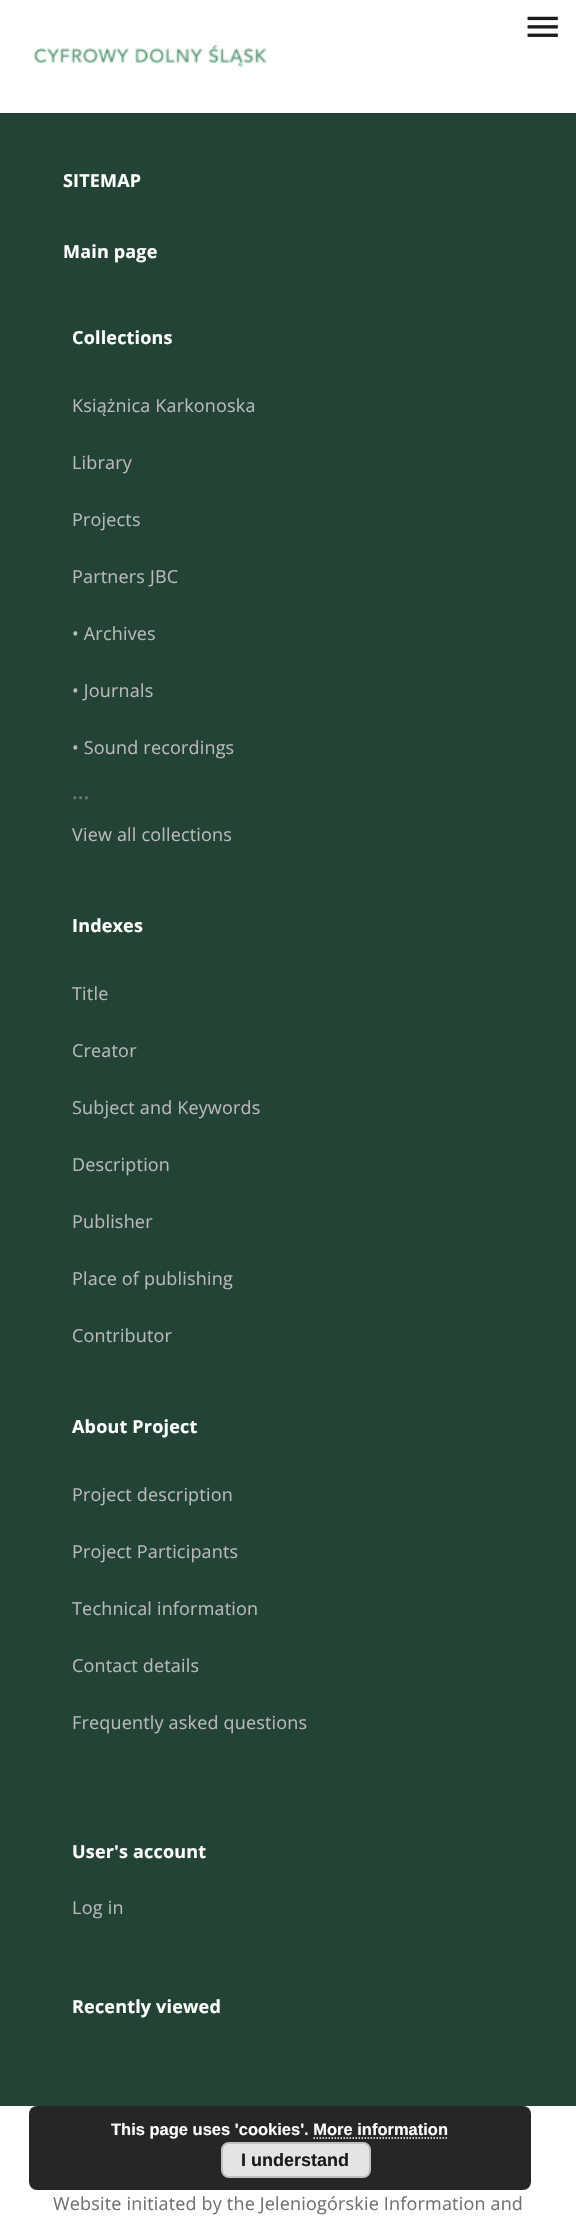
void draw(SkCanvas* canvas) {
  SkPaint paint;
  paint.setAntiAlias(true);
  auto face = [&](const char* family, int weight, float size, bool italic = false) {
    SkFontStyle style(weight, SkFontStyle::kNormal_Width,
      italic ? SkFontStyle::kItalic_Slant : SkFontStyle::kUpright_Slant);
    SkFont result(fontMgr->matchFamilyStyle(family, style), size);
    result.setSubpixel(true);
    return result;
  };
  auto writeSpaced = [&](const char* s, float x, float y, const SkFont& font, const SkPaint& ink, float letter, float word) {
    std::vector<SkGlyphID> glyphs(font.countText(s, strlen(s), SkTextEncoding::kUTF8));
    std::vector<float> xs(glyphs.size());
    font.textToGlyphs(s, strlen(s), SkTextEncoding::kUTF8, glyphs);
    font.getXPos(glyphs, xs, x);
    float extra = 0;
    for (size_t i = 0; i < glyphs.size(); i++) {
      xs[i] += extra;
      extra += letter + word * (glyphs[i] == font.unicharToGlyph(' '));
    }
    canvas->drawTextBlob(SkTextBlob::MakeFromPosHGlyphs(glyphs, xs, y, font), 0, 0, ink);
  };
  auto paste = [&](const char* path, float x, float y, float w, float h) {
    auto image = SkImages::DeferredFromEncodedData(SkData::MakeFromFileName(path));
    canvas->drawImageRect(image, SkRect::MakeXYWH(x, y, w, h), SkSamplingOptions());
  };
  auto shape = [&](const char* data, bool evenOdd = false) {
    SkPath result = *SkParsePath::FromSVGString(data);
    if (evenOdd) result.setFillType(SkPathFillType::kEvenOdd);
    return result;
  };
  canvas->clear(0xff234334);
  paint.setColor(0xffffffff);
  canvas->drawRect(SkRect::MakeXYWH(0, 0, 576, 113), paint);
  paste("img/1.png", 527, 16, 31, 21);
  paste("img/2.png", 34, 45, 234, 23);
  canvas->drawRect(SkRect::MakeXYWH(0, 2106, 576, 128), paint);
  paint.setColor(0xff262626);
  canvas->drawRoundRect(SkRect::MakeXYWH(29, 2106, 502, 84), 8, 8, paint);
  paint.setStroke(true);
  paint.setStrokeWidth(1.5f);
  paint.setColor(0xffffffff);
  paint.setPathEffect(SkDashPathEffect::Make({{1.5f, 1.5f}}, 0));
  canvas->drawPath(shape("M313.5 2138H448.5"), paint);
  paint.setPathEffect(nullptr);
  paint.setStroke(false);
  paint.setColor(0xffe4e4e4);
  canvas->drawRoundRect(SkRect::MakeXYWH(222, 2143, 148, 34), 7, 7, paint);
  paint.setStroke(true);
  paint.setStrokeWidth(2);
  paint.setColor(0xffc1c1c1);
  canvas->drawRoundRect(SkRect::MakeXYWH(222, 2143, 148, 34), 7, 7, paint);
  auto f0 = face("Open Sans", 700, 18);
  paint.setStroke(false);
  paint.setColor(0xffffffff);
  {
    const struct { const char* s; float x, y; } items[] = {
      {"SITEMAP", 63, 187},
      {"Main page", 63, 258},
      {"Collections", 72, 344},
    };
    for (auto [s, x, y] : items) {
      writeSpaced(s, x, y, f0, paint, 0.18f, 0);
    }
  }
  auto f1 = face("Open Sans", 400, 18);
  paint.setColor(0xffb9b9b9);
  {
    const struct { const char* s; float x, y; } items[] = {
      {"Książnica Karkonoska", 72, 412},
      {"Library", 72, 469},
      {"Projects", 72, 526},
      {"Partners JBC", 72, 583},
      {"• Archives", 72, 640},
      {"• Journals", 72, 697},
      {"• Sound recordings", 72, 754},
    };
    for (auto [s, x, y] : items) {
      writeSpaced(s, x, y, f1, paint, 0.18f, 0);
    }
  }
  auto f2 = face("Open Sans", 600, 21);
  paint.setColor(0xff707070);
  canvas->drawString("...", 72, 799, f2, paint);
  paint.setColor(0xffb9b9b9);
  writeSpaced("View all collections", 72, 841, f1, paint, 0.18f, 0);
  paint.setColor(0xffffffff);
  writeSpaced("Indexes", 72, 932, f0, paint, 0.18f, 0);
  paint.setColor(0xffb9b9b9);
  {
    const struct { const char* s; float x, y; } items[] = {
      {"Title", 72, 1000},
      {"Creator", 72, 1057},
      {"Subject and Keywords", 72, 1114},
      {"Description", 72, 1171},
      {"Publisher", 72, 1228},
      {"Place of publishing", 72, 1285},
      {"Contributor", 72, 1342},
    };
    for (auto [s, x, y] : items) {
      writeSpaced(s, x, y, f1, paint, 0.18f, 0);
    }
  }
  paint.setColor(0xffffffff);
  writeSpaced("About Project", 72, 1433, f0, paint, 0.18f, 0);
  paint.setColor(0xffb9b9b9);
  {
    const struct { const char* s; float x, y; } items[] = {
      {"Project description", 72, 1501},
      {"Project Participants", 72, 1558},
      {"Technical information", 72, 1615},
      {"Contact details", 72, 1672},
      {"Frequently asked questions", 72, 1729},
    };
    for (auto [s, x, y] : items) {
      writeSpaced(s, x, y, f1, paint, 0.18f, 0);
    }
  }
  paint.setColor(0xffffffff);
  writeSpaced("User's account", 72, 1858, f0, paint, 0.18f, 0);
  paint.setColor(0xffb9b9b9);
  writeSpaced("Log in", 72, 1914, f1, paint, 0.25f, 0);
  paint.setColor(0xffffffff);
  writeSpaced("Recently viewed", 72, 2013, f0, paint, 0.18f, 0);
  paint.setColor(0xff707070);
  writeSpaced("Website initiated by the Jeleniogórskie Information and", 53, 2210, f1, paint, 0.18f, 0);
  auto f3 = face("Liberation Sans", 700, 16.5f);
  paint.setColor(0xffffffff);
  canvas->drawString("This page uses 'cookies'. More information", 111, 2135, f3, paint);
  auto f4 = face("Liberation Sans", 700, 18);
  paint.setColor(0xff1a1b1c);
  canvas->drawString("I understand", 241, 2166, f4, paint);
}
